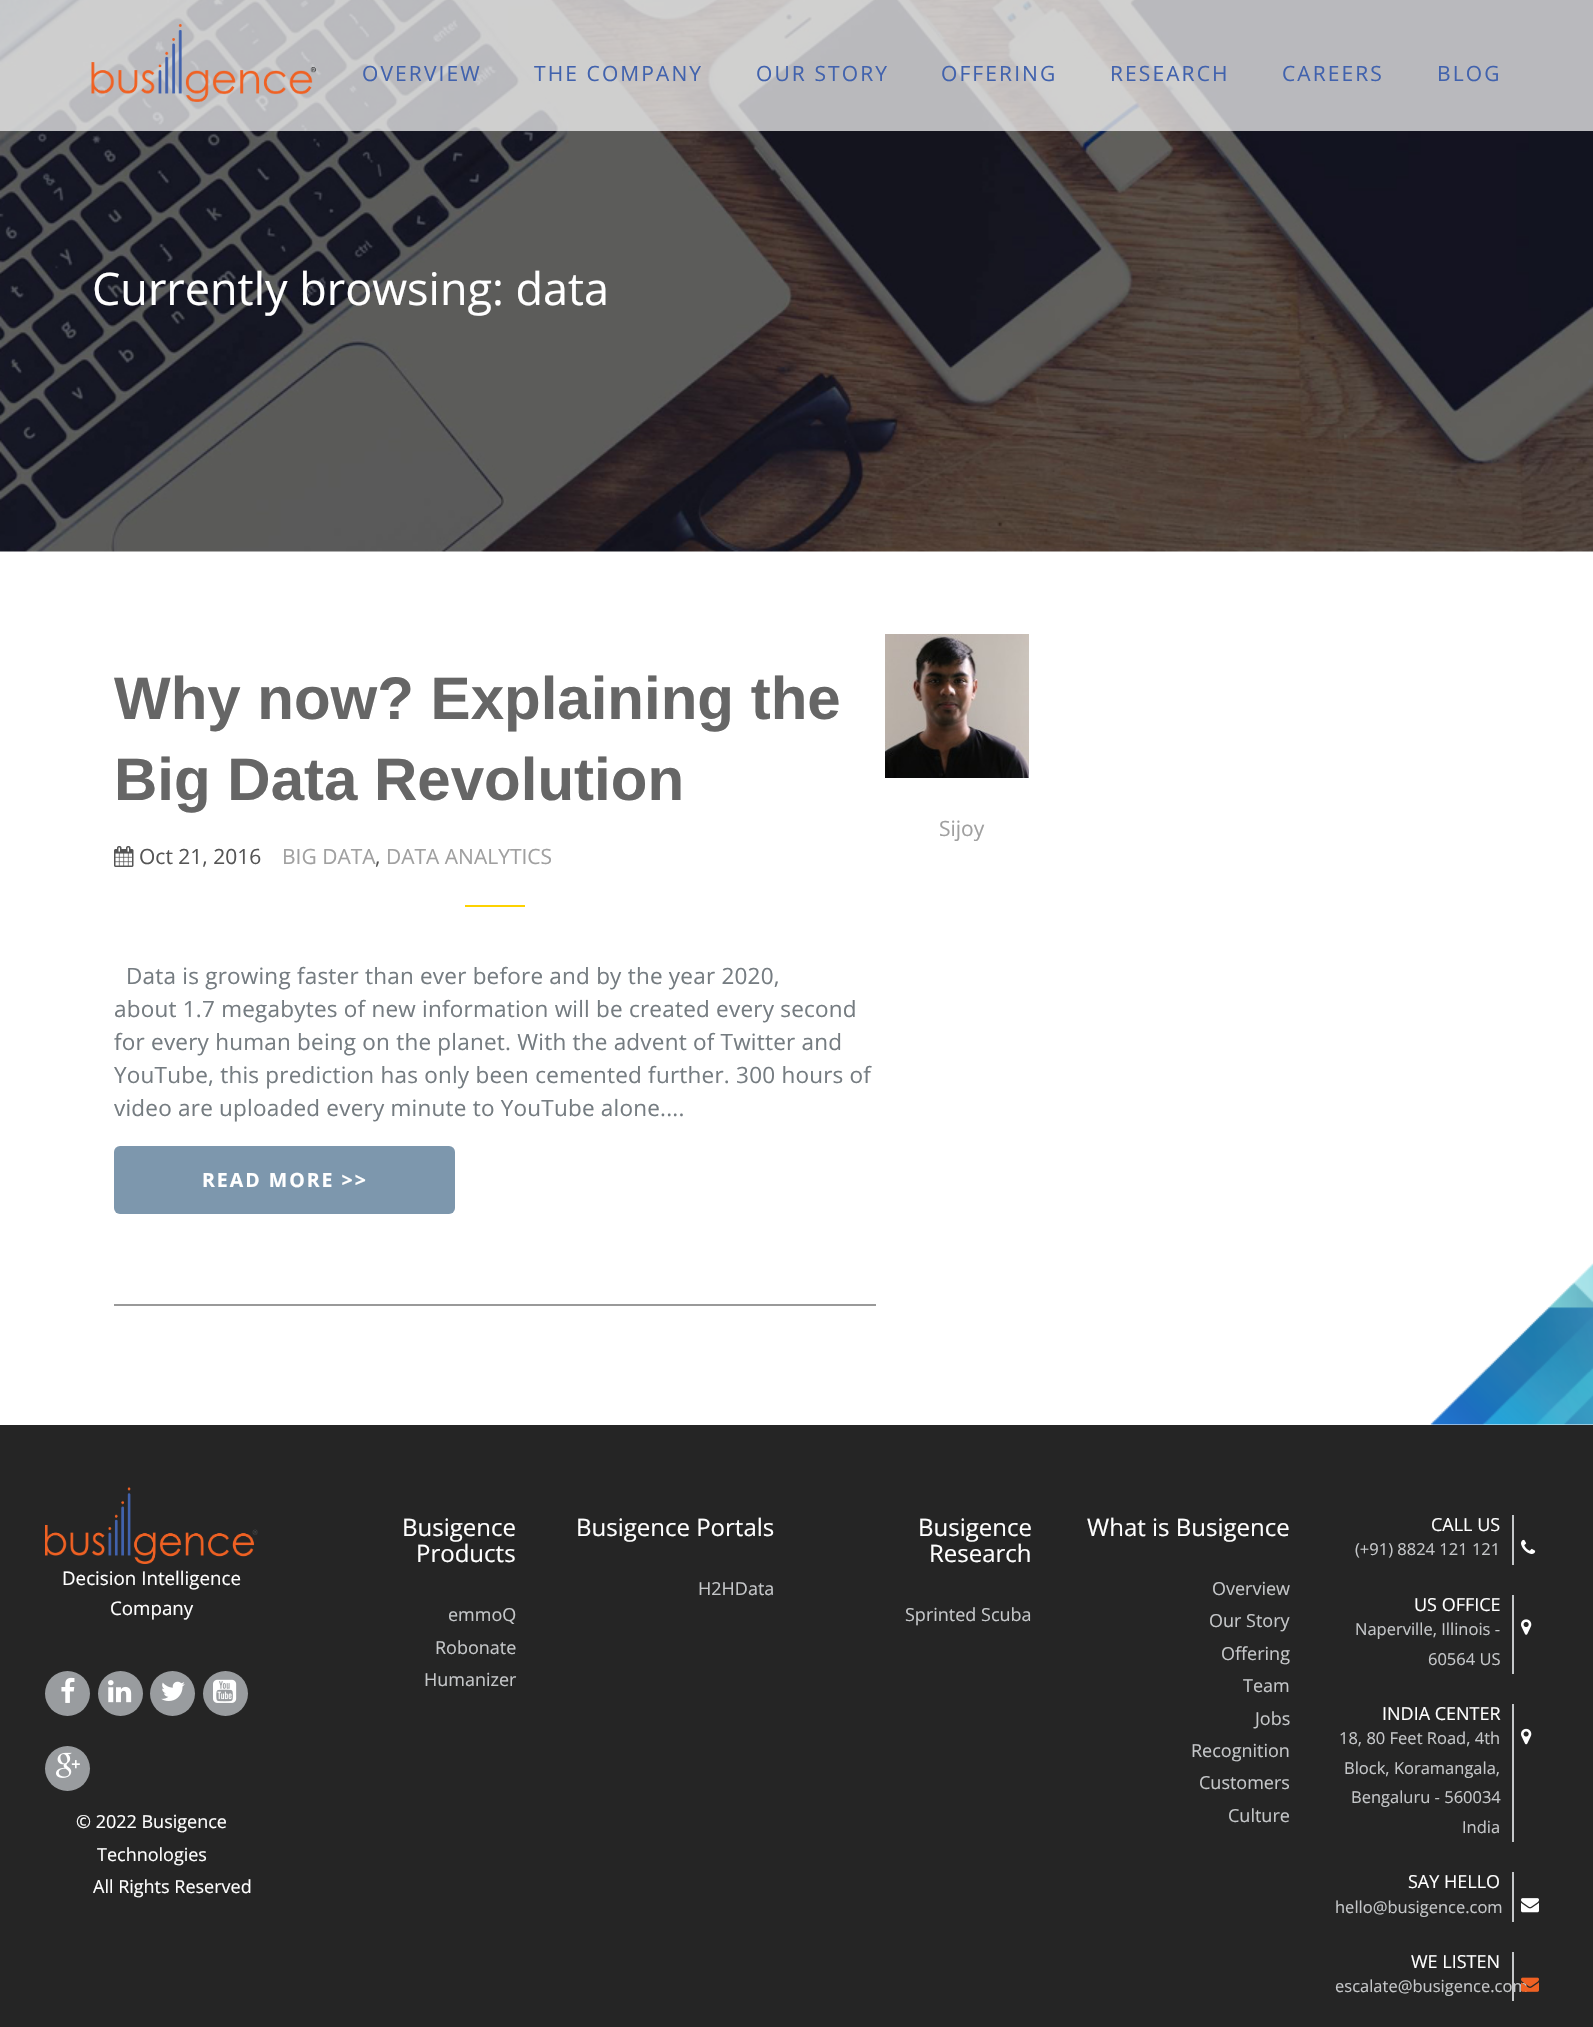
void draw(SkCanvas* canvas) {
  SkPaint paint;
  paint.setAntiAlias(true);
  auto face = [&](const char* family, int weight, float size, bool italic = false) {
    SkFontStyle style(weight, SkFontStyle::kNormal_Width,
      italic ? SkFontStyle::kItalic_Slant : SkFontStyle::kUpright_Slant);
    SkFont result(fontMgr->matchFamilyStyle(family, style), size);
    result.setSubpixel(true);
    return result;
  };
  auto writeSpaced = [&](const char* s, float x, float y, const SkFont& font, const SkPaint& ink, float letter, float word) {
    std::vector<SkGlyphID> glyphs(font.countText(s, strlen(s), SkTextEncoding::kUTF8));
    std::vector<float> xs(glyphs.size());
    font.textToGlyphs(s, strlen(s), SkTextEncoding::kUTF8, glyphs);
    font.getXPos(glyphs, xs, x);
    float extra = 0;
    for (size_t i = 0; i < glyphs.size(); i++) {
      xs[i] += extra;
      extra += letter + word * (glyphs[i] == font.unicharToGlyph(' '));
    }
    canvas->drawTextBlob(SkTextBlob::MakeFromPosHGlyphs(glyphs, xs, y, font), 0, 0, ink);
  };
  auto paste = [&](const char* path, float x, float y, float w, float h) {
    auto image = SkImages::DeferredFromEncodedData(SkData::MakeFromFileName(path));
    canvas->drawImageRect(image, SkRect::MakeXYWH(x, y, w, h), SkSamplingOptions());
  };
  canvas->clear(0xffffffff);
  paste("img/2.png", 0, 0, 1593, 552);
  paint.setColor(0xb3ffffff);
  canvas->drawRect(SkRect::MakeXYWH(0, 0, 1593, 131), paint);
  paste("img/1.png", 91, 24, 226, 78);
  paste("img/3.png", 114, 846, 20, 21);
  paint.setColor(0xfffdd200);
  canvas->drawRect(SkRect::MakeXYWH(465, 905, 60, 2), paint);
  paint.setColor(0xff999999);
  canvas->drawRect(SkRect::MakeXYWH(114, 1304, 762, 2), paint);
  paint.setColor(0xff7d97ad);
  canvas->drawRoundRect(SkRect::MakeXYWH(114, 1146, 341, 68), 6, 6, paint);
  paste("img/4.png", 885, 634, 144, 144);
  paste("img/5.png", 1430, 1263, 163, 162);
  paint.setColor(0xff252525);
  canvas->drawRect(SkRect::MakeXYWH(0, 1425, 1593, 602), paint);
  paste("img/6.png", 45, 1487, 213, 77);
  paint.setColor(0xff999c9f);
  canvas->drawCircle(67.5f, 1693.5f, 22.5f, paint);
  paste("img/7.png", 61, 1677, 14, 26);
  canvas->drawCircle(120.5f, 1693.5f, 22.5f, paint);
  paste("img/8.png", 108, 1680, 24, 23);
  canvas->drawCircle(172.5f, 1693.5f, 22.5f, paint);
  paste("img/9.png", 161, 1681, 24, 20);
  canvas->drawCircle(225.5f, 1693.5f, 22.5f, paint);
  paste("img/10.png", 213, 1679, 24, 24);
  canvas->drawCircle(67.5f, 1768.5f, 22.5f, paint);
  paste("img/11.png", 56, 1752, 24, 26);
  paint.setColor(0xffc5c7c9);
  canvas->drawRect(SkRect::MakeXYWH(1512, 1515, 2, 50), paint);
  paste("img/12.png", 1521, 1539, 15, 15);
  canvas->drawRect(SkRect::MakeXYWH(1512, 1595, 2, 79), paint);
  paste("img/13.png", 1521, 1619, 11, 16);
  canvas->drawRect(SkRect::MakeXYWH(1512, 1704, 2, 138), paint);
  paste("img/14.png", 1521, 1728, 11, 17);
  canvas->drawRect(SkRect::MakeXYWH(1512, 1872, 2, 50), paint);
  paste("img/15.png", 1521, 1898, 18, 15);
  canvas->drawRect(SkRect::MakeXYWH(1512, 1952, 2, 49), paint);
  auto f0 = face("Open Sans", 400, 21);
  paint.setColor(0xff4162ad);
  {
    const struct { const char* s; float x, y; } items[] = {
      {"OVERVIEW", 362, 81},
      {"THE COMPANY", 534, 81},
      {"OUR STORY", 756, 81},
      {"OFFERING", 941, 81},
      {"RESEARCH", 1110, 81},
      {"CAREERS", 1282, 81},
      {"BLOG", 1437, 81},
    };
    for (auto [s, x, y] : items) {
      writeSpaced(s, x, y, f0, paint, 2.1f, 0);
    }
  }
  auto f1 = face("Open Sans", 400, 45);
  paint.setColor(0xffffffff);
  canvas->drawString("Currently browsing: data", 92, 305, f1, paint);
  auto f2 = face("Liberation Sans", 700, 60);
  paint.setColor(0xff666666);
  canvas->drawString("Why now? Explaining the", 114, 719, f2, paint);
  canvas->drawString("Big Data Revolution", 114, 800, f2, paint);
  paint.setColor(0xff555555);
  canvas->drawString("Oct 21, 2016", 139, 864, f0, paint);
  paint.setColor(0xffa0a0a0);
  canvas->drawString("BIG DATA", 282, 864, f0, paint);
  paint.setColor(0xff555555);
  canvas->drawString(",", 375, 864, f0, paint);
  paint.setColor(0xffa0a0a0);
  canvas->drawString("DATA ANALYTICS", 386, 864, f0, paint);
  auto f3 = face("Open Sans", 400, 22.5f);
  paint.setColor(0xff757c81);
  {
    const struct { const char* s; float x, y; } items[] = {
      {"Data is growing faster than ever before and by the year 2020,", 126, 984},
      {"about 1.7 megabytes of new information will be created every second", 114, 1017},
      {"for every human being on the planet. With the advent of Twitter and", 114, 1050},
      {"YouTube, this prediction has only been cemented further. 300 hours of", 114, 1083},
      {"video are uploaded every minute to YouTube alone....", 114, 1116},
    };
    for (auto [s, x, y] : items) {
      writeSpaced(s, x, y, f3, paint, 0.22f, 0);
    }
  }
  auto f4 = face("Open Sans", 700, 19.5f);
  paint.setColor(0xffffffff);
  writeSpaced("READ MORE >>", 202, 1187, f4, paint, 2, 0);
  paint.setColor(0xffa0a0a0);
  canvas->drawString("Sijoy", 939, 836, f0, paint);
  auto f5 = face("Open Sans", 400, 18.75f);
  paint.setColor(0xffffffff);
  canvas->drawString("Decision Intelligence", 62, 1585, f5, paint);
  canvas->drawString("Company", 110, 1615, f5, paint);
  auto f6 = face("Open Sans", 400, 18);
  {
    const struct { const char* s; float x, y; } items[] = {
      {"© 2022 Busigence", 76, 1828},
      {"Technologies", 97, 1861},
      {"All Rights Reserved", 93, 1893},
    };
    for (auto [s, x, y] : items) {
      canvas->drawString(s, x, y, f6, paint);
    }
  }
  auto f7 = face("Open Sans", 400, 24);
  canvas->drawString("Busigence", 402, 1536, f7, paint);
  canvas->drawString("Products", 416, 1562, f7, paint);
  paint.setColor(0xffc5c7c9);
  {
    const struct { const char* s; float x, y; } items[] = {
      {"emmoQ", 448, 1621},
      {"Robonate", 435, 1654},
      {"Humanizer", 424, 1686},
    };
    for (auto [s, x, y] : items) {
      canvas->drawString(s, x, y, f6, paint);
    }
  }
  paint.setColor(0xffffffff);
  canvas->drawString("Busigence Portals", 576, 1536, f7, paint);
  paint.setColor(0xffc5c7c9);
  canvas->drawString("H2HData", 698, 1595, f6, paint);
  paint.setColor(0xffffffff);
  canvas->drawString("Busigence", 918, 1536, f7, paint);
  canvas->drawString("Research", 929, 1562, f7, paint);
  paint.setColor(0xffc5c7c9);
  canvas->drawString("Sprinted Scuba", 905, 1621, f6, paint);
  paint.setColor(0xffffffff);
  canvas->drawString("What is Busigence", 1087, 1536, f7, paint);
  paint.setColor(0xffc5c7c9);
  {
    const struct { const char* s; float x, y; } items[] = {
      {"Overview", 1212, 1595},
      {"Our Story", 1209, 1627},
      {"Offering", 1221, 1660},
      {"Team", 1243, 1692},
      {"Jobs", 1255, 1725},
      {"Recognition", 1191, 1757},
      {"Customers", 1199, 1789},
      {"Culture", 1228, 1822},
    };
    for (auto [s, x, y] : items) {
      canvas->drawString(s, x, y, f6, paint);
    }
  }
  paint.setColor(0xffffffff);
  canvas->drawString("CALL US", 1431, 1531, f6, paint);
  auto f8 = face("Open Sans", 400, 16.5f);
  paint.setColor(0xffc5c7c9);
  canvas->drawString("(+91) 8824 121 121", 1355, 1555, f8, paint);
  paint.setColor(0xffffffff);
  canvas->drawString("US OFFICE", 1414, 1611, f6, paint);
  paint.setColor(0xffc5c7c9);
  canvas->drawString("Naperville, Illinois -", 1355, 1635, f8, paint);
  canvas->drawString("60564 US", 1428, 1665, f8, paint);
  paint.setColor(0xffffffff);
  canvas->drawString("INDIA CENTER", 1382, 1720, f6, paint);
  paint.setColor(0xffc5c7c9);
  {
    const struct { const char* s; float x, y; } items[] = {
      {"18, 80 Feet Road, 4th", 1339, 1744},
      {"Block, Koramangala,", 1344, 1774},
      {"Bengaluru - 560034", 1351, 1803},
      {"India", 1462, 1833},
    };
    for (auto [s, x, y] : items) {
      canvas->drawString(s, x, y, f8, paint);
    }
  }
  paint.setColor(0xffffffff);
  canvas->drawString("SAY HELLO", 1408, 1888, f6, paint);
  paint.setColor(0xffc5c7c9);
  canvas->drawString("hello@busigence.com", 1335, 1913, f8, paint);
  paint.setColor(0xffffffff);
  canvas->drawString("WE LISTEN", 1411, 1968, f6, paint);
  paint.setColor(0xffc5c7c9);
  canvas->drawString("escalate@busigence.com", 1335, 1992, f8, paint);
  paste("img/16.png", 1521, 1977, 18, 15);
}
